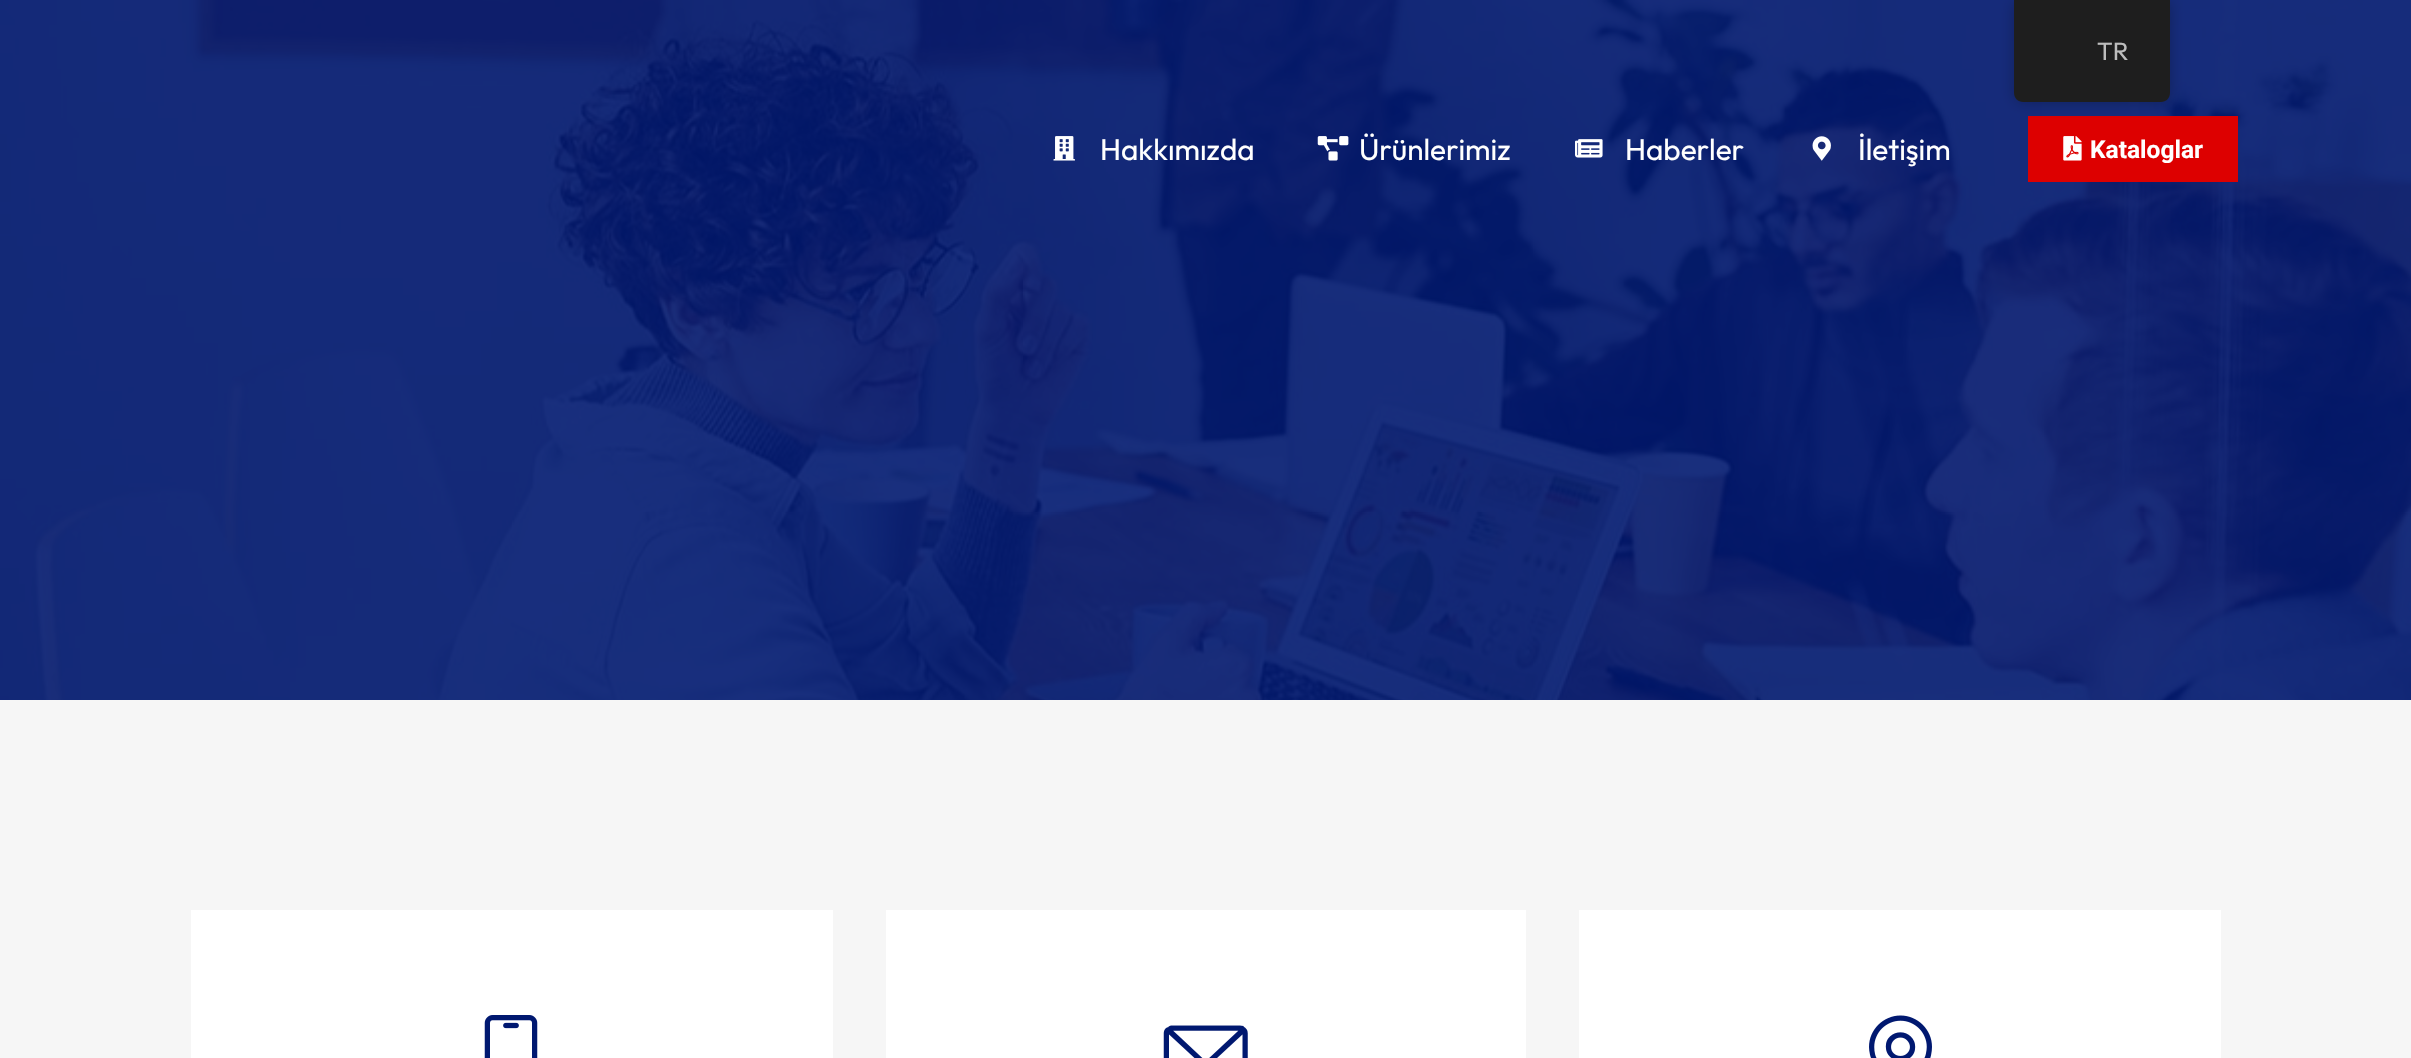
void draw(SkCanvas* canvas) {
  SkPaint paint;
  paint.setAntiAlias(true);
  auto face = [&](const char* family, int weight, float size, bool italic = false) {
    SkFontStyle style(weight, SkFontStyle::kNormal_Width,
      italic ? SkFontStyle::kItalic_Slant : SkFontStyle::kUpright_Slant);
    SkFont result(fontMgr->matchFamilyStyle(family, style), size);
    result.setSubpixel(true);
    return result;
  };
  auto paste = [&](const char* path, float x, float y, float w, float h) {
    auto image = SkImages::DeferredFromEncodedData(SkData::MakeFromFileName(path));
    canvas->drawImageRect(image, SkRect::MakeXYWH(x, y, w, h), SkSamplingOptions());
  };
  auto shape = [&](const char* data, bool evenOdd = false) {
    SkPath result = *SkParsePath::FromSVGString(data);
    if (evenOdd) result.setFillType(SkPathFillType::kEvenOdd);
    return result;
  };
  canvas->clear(0xffffffff);
  paste("img/1.png", 0, 0, 2411, 700);
  paint.setColor(0xffdd0000);
  canvas->drawRect(SkRect::MakeXYWH(2028, 116, 210, 66), paint);
  paint.setColor(0x40000000);
  paint.setMaskFilter(SkMaskFilter::MakeBlur(kNormal_SkBlurStyle, 7));
  canvas->drawRoundRect(SkRect::MakeXYWH(2014, 0, 156, 102), 9, 9, paint);
  paint.setMaskFilter(nullptr);
  paint.setColor(0xff1e1e1e);
  canvas->drawPath(shape("M2014 0H2170V93C2170 98 2166 102 2161 102H2023C2018 102 2014 98 2014 93Z"), paint);
  paste("img/2.png", 1053, 136, 22, 25);
  paste("img/3.png", 1317, 136, 32, 25);
  paste("img/4.png", 1575, 139, 28, 19);
  paste("img/5.png", 1812, 136, 19, 25);
  paste("img/6.png", 2063, 136, 19, 25);
  paint.setColor(0xfff6f6f6);
  canvas->drawRect(SkRect::MakeXYWH(0, 700, 2411, 358), paint);
  paint.setColor(0xffffffff);
  canvas->drawRect(SkRect::MakeXYWH(191, 910, 642, 148), paint);
  paste("img/7.png", 484, 1015, 54, 43);
  canvas->drawRect(SkRect::MakeXYWH(886, 910, 640, 148), paint);
  paste("img/8.png", 1163, 1025, 85, 33);
  canvas->drawRect(SkRect::MakeXYWH(1579, 910, 642, 148), paint);
  paste("img/9.png", 1869, 1015, 63, 43);
  auto f0 = face("Outfit", 400, 25);
  paint.setColor(0xffbdbdbd);
  canvas->drawString("TR", 2097, 60, f0, paint);
  auto f1 = face("Outfit", 400, 29.75f);
  paint.setColor(0xffffffff);
  {
    const struct { const char* s; float x, y; } items[] = {
      {"Hakkımızda", 1100, 160},
      {"Ürünlerimiz", 1359, 160},
      {"Haberler", 1625, 160},
      {"İletişim", 1858, 160},
    };
    for (auto [s, x, y] : items) {
      canvas->drawString(s, x, y, f1, paint);
    }
  }
  auto f2 = face("Roboto", 700, 24.5f);
  canvas->drawString("Kataloglar", 2090, 158, f2, paint);
}
